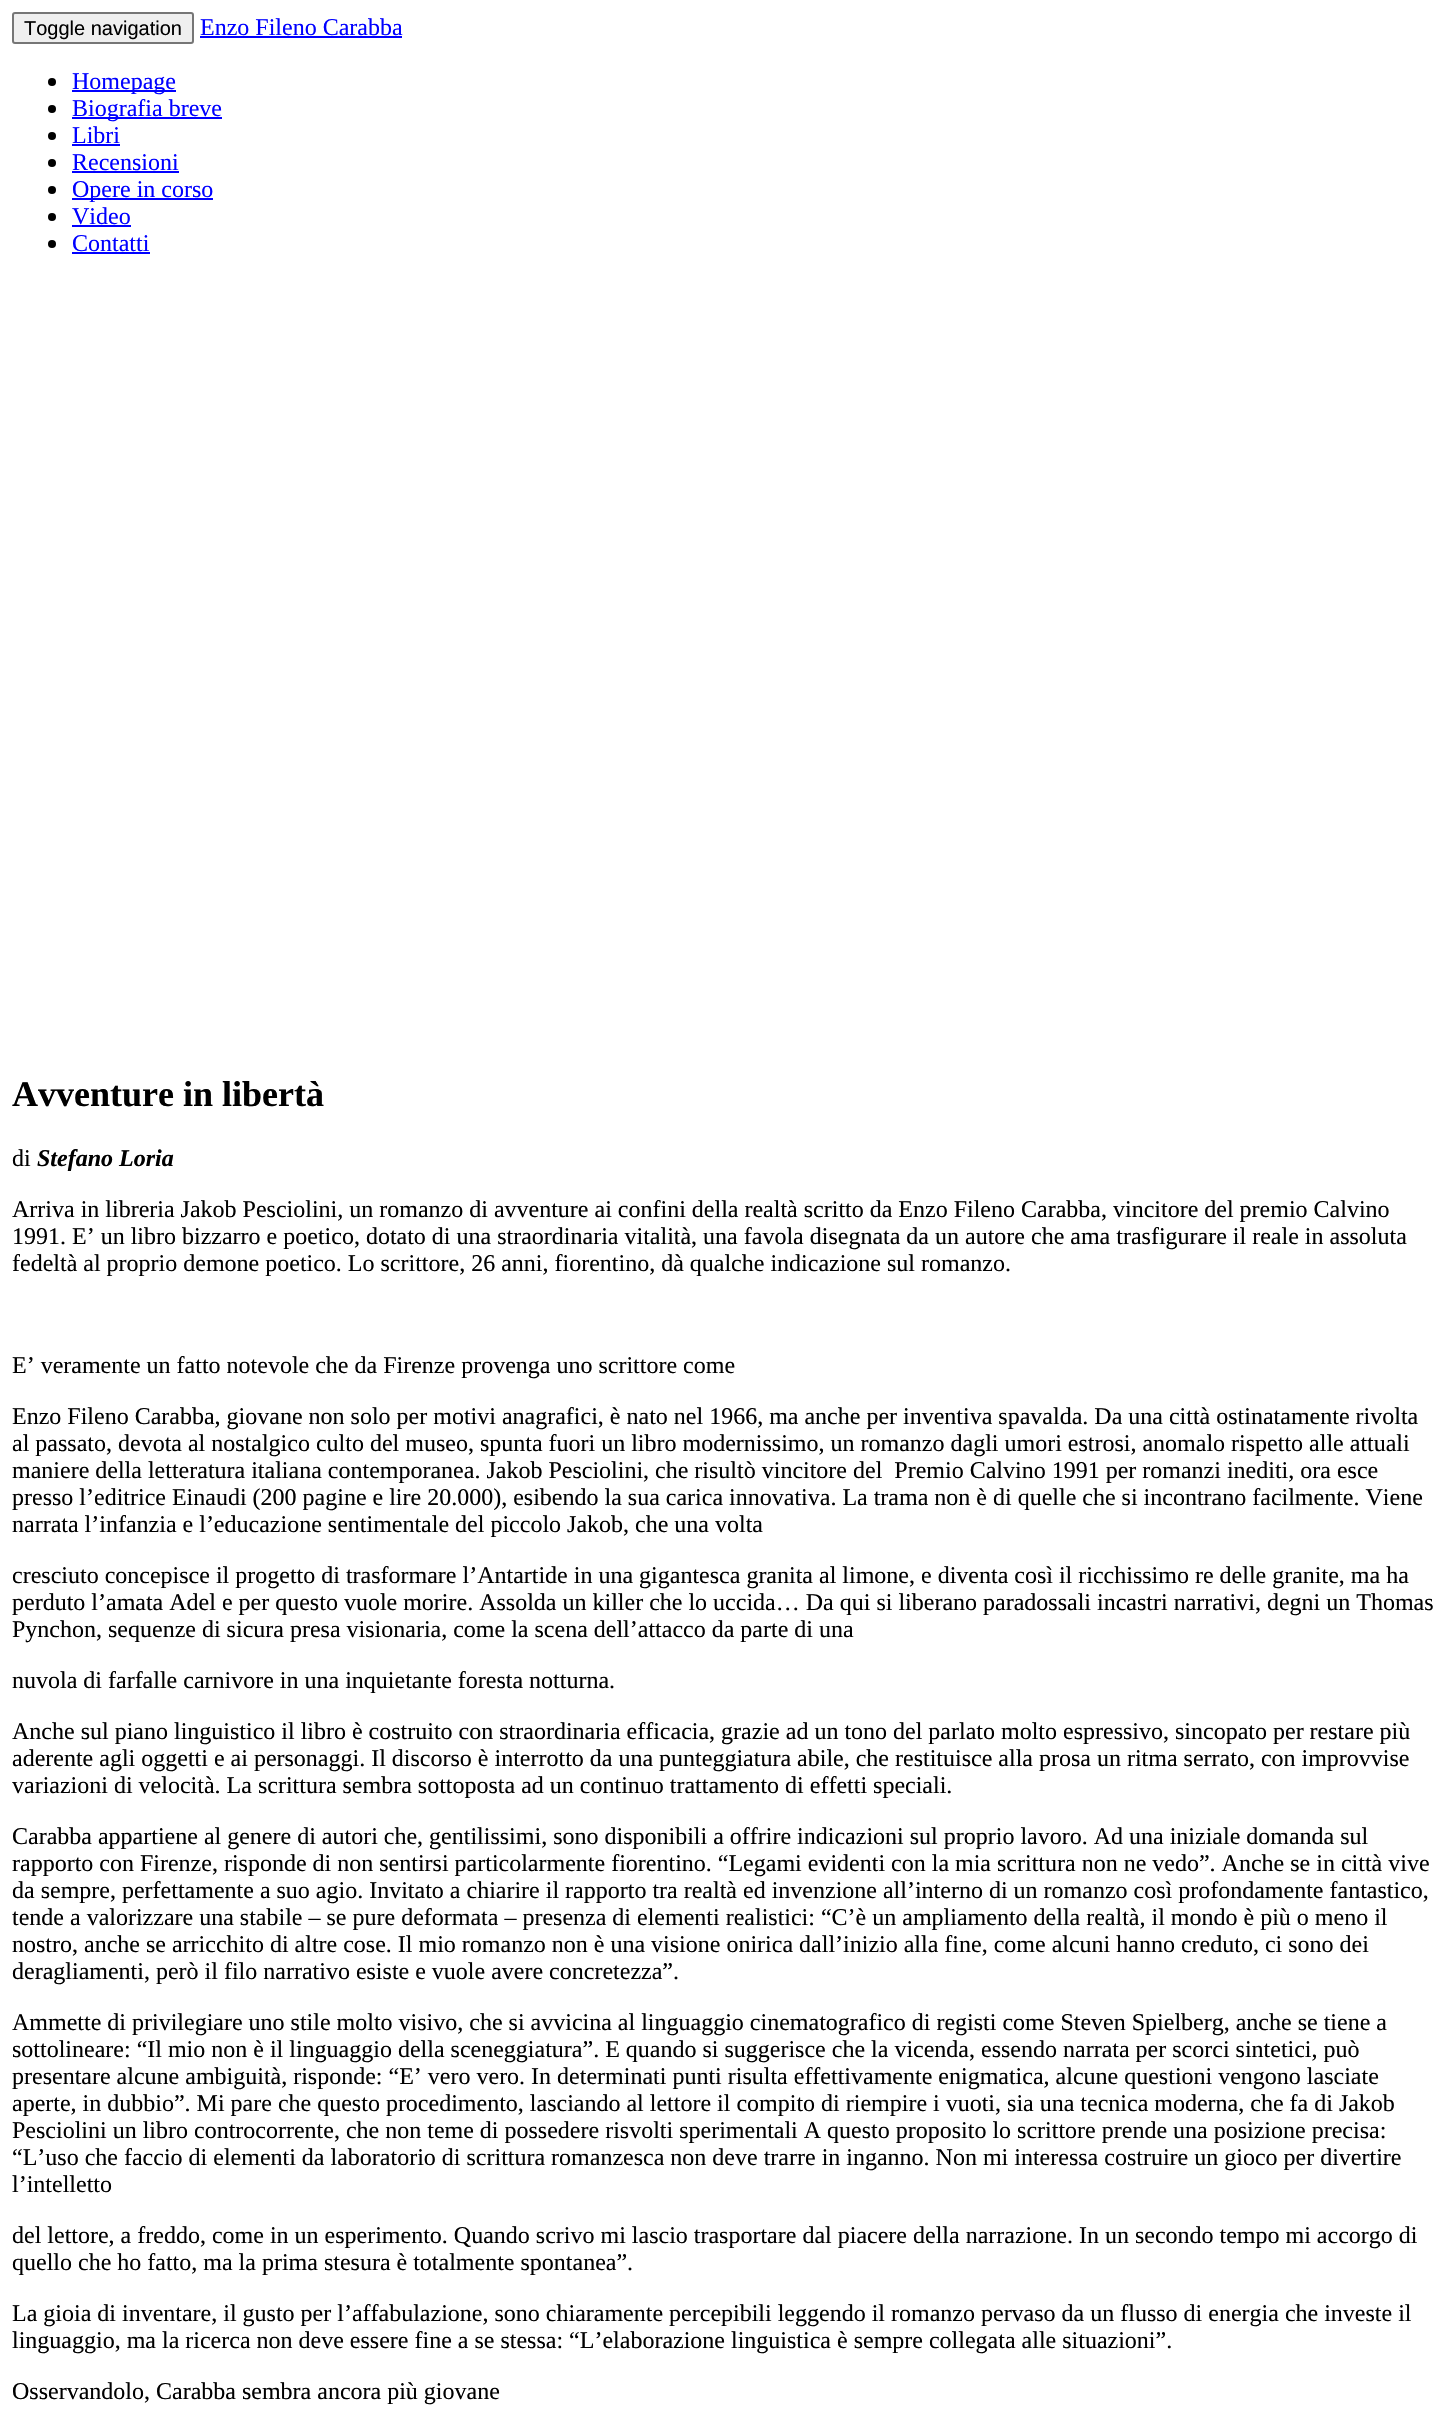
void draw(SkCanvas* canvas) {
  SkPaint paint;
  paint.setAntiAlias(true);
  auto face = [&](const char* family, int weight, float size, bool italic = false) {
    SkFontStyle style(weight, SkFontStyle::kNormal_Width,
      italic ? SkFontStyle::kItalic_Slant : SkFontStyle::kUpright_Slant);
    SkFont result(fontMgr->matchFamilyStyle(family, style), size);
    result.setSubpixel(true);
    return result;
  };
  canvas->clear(0xffffffff);
  paint.setColor(0xffefefef);
  canvas->drawRoundRect(SkRect::MakeXYWH(13, 13, 180, 30), 2, 2, paint);
  paint.setStroke(true);
  paint.setStrokeWidth(2);
  paint.setColor(0xff767676);
  canvas->drawRoundRect(SkRect::MakeXYWH(13, 13, 180, 30), 2, 2, paint);
  paint.setStroke(false);
  paint.setColor(0xff0000ff);
  canvas->drawRect(SkRect::MakeXYWH(200, 36, 202, 2), paint);
  paint.setColor(0xff000000);
  canvas->drawCircle(52, 82, 4, paint);
  paint.setColor(0xff0000ff);
  canvas->drawRect(SkRect::MakeXYWH(72, 90, 104, 2), paint);
  paint.setColor(0xff000000);
  canvas->drawCircle(52, 109, 4, paint);
  paint.setColor(0xff0000ff);
  canvas->drawRect(SkRect::MakeXYWH(72, 117, 150, 2), paint);
  paint.setColor(0xff000000);
  canvas->drawCircle(52, 136, 4, paint);
  paint.setColor(0xff0000ff);
  canvas->drawRect(SkRect::MakeXYWH(72, 144, 48, 2), paint);
  paint.setColor(0xff000000);
  canvas->drawCircle(52, 163, 4, paint);
  paint.setColor(0xff0000ff);
  canvas->drawRect(SkRect::MakeXYWH(72, 171, 107, 2), paint);
  paint.setColor(0xff000000);
  canvas->drawCircle(52, 190, 4, paint);
  paint.setColor(0xff0000ff);
  canvas->drawRect(SkRect::MakeXYWH(72, 198, 141, 2), paint);
  paint.setColor(0xff000000);
  canvas->drawCircle(52, 217, 4, paint);
  paint.setColor(0xff0000ff);
  canvas->drawRect(SkRect::MakeXYWH(72, 225, 59, 2), paint);
  paint.setColor(0xff000000);
  canvas->drawCircle(52, 244, 4, paint);
  paint.setColor(0xff0000ff);
  canvas->drawRect(SkRect::MakeXYWH(72, 252, 78, 2), paint);
  auto f0 = face("Liberation Sans", 400, 20);
  paint.setColor(0xff000000);
  canvas->drawString("Toggle navigation", 24, 35, f0, paint);
  auto f1 = face("Liberation Serif", 400, 24);
  paint.setColor(0xff0000ff);
  {
    const struct { const char* s; float x, y; } items[] = {
      {"Enzo Fileno Carabba", 200, 35},
      {"Homepage", 72, 89},
      {"Biografia breve", 72, 116},
      {"Libri", 72, 143},
      {"Recensioni", 72, 170},
      {"Opere in corso", 72, 197},
      {"Video", 72, 224},
      {"Contatti", 72, 251},
    };
    for (auto [s, x, y] : items) {
      canvas->drawString(s, x, y, f1, paint);
    }
  }
  auto f2 = face("Liberation Serif", 700, 36);
  paint.setColor(0xff000000);
  canvas->drawString("Avventure in libertà", 12, 1106, f2, paint);
  canvas->drawString("di", 12, 1166, f1, paint);
  auto f3 = face("Liberation Serif", 700, 24, true);
  canvas->drawString("Stefano Loria", 37, 1166, f3, paint);
  {
    const struct { const char* s; float x, y; } items[] = {
      {"Arriva in libreria Jakob Pesciolini, un romanzo di avventure ai confini della realtà scritto da Enzo Fileno Carabba, vincitore del premio Calvino", 12, 1217},
      {"1991. E’ un libro bizzarro e poetico, dotato di una straordinaria vitalità, una favola disegnata da un autore che ama trasfigurare il reale in assoluta", 12, 1244},
      {"fedeltà al proprio demone poetico. Lo scrittore, 26 anni, fiorentino, dà qualche indicazione sul romanzo.", 12, 1271},
      {"E’ veramente un fatto notevole che da Firenze provenga uno scrittore come", 12, 1373},
      {"Enzo Fileno Carabba, giovane non solo per motivi anagrafici, è nato nel 1966, ma anche per inventiva spavalda. Da una città ostinatamente rivolta", 12, 1424},
      {"al passato, devota al nostalgico culto del museo, spunta fuori un libro modernissimo, un romanzo dagli umori estrosi, anomalo rispetto alle attuali", 12, 1451},
      {"maniere della letteratura italiana contemporanea. Jakob Pesciolini, che risultò vincitore del  Premio Calvino 1991 per romanzi inediti, ora esce", 12, 1478},
      {"presso l’editrice Einaudi (200 pagine e lire 20.000), esibendo la sua carica innovativa. La trama non è di quelle che si incontrano facilmente. Viene", 12, 1505},
      {"narrata l’infanzia e l’educazione sentimentale del piccolo Jakob, che una volta", 12, 1532},
      {"cresciuto concepisce il progetto di trasformare l’Antartide in una gigantesca granita al limone, e diventa così il ricchissimo re delle granite, ma ha", 12, 1583},
      {"perduto l’amata Adel e per questo vuole morire. Assolda un killer che lo uccida… Da qui si liberano paradossali incastri narrativi, degni un Thomas", 12, 1610},
      {"Pynchon, sequenze di sicura presa visionaria, come la scena dell’attacco da parte di una", 12, 1637},
      {"nuvola di farfalle carnivore in una inquietante foresta notturna.", 12, 1688},
      {"Anche sul piano linguistico il libro è costruito con straordinaria efficacia, grazie ad un tono del parlato molto espressivo, sincopato per restare più", 12, 1739},
      {"aderente agli oggetti e ai personaggi. Il discorso è interrotto da una punteggiatura abile, che restituisce alla prosa un ritma serrato, con improvvise", 12, 1766},
      {"variazioni di velocità. La scrittura sembra sottoposta ad un continuo trattamento di effetti speciali.", 12, 1793},
      {"Carabba appartiene al genere di autori che, gentilissimi, sono disponibili a offrire indicazioni sul proprio lavoro. Ad una iniziale domanda sul", 12, 1844},
      {"rapporto con Firenze, risponde di non sentirsi particolarmente fiorentino. “Legami evidenti con la mia scrittura non ne vedo”. Anche se in città vive", 12, 1871},
      {"da sempre, perfettamente a suo agio. Invitato a chiarire il rapporto tra realtà ed invenzione all’interno di un romanzo così profondamente fantastico,", 12, 1898},
      {"tende a valorizzare una stabile – se pure deformata – presenza di elementi realistici: “C’è un ampliamento della realtà, il mondo è più o meno il", 12, 1925},
      {"nostro, anche se arricchito di altre cose. Il mio romanzo non è una visione onirica dall’inizio alla fine, come alcuni hanno creduto, ci sono dei", 12, 1952},
      {"deragliamenti, però il filo narrativo esiste e vuole avere concretezza”.", 12, 1979},
      {"Ammette di privilegiare uno stile molto visivo, che si avvicina al linguaggio cinematografico di registi come Steven Spielberg, anche se tiene a", 12, 2030},
      {"sottolineare: “Il mio non è il linguaggio della sceneggiatura”. E quando si suggerisce che la vicenda, essendo narrata per scorci sintetici, può", 12, 2057},
      {"presentare alcune ambiguità, risponde: “E’ vero vero. In determinati punti risulta effettivamente enigmatica, alcune questioni vengono lasciate", 12, 2084},
      {"aperte, in dubbio”. Mi pare che questo procedimento, lasciando al lettore il compito di riempire i vuoti, sia una tecnica moderna, che fa di Jakob", 12, 2111},
      {"Pesciolini un libro controcorrente, che non teme di possedere risvolti sperimentali A questo proposito lo scrittore prende una posizione precisa:", 12, 2138},
      {"“L’uso che faccio di elementi da laboratorio di scrittura romanzesca non deve trarre in inganno. Non mi interessa costruire un gioco per divertire", 12, 2165},
      {"l’intelletto", 12, 2192},
      {"del lettore, a freddo, come in un esperimento. Quando scrivo mi lascio trasportare dal piacere della narrazione. In un secondo tempo mi accorgo di", 12, 2243},
      {"quello che ho fatto, ma la prima stesura è totalmente spontanea”.", 12, 2270},
      {"La gioia di inventare, il gusto per l’affabulazione, sono chiaramente percepibili leggendo il romanzo pervaso da un flusso di energia che investe il", 12, 2321},
      {"linguaggio, ma la ricerca non deve essere fine a se stessa: “L’elaborazione linguistica è sempre collegata alle situazioni”.", 12, 2348},
      {"Osservandolo, Carabba sembra ancora più giovane", 12, 2399},
    };
    for (auto [s, x, y] : items) {
      canvas->drawString(s, x, y, f1, paint);
    }
  }
}
